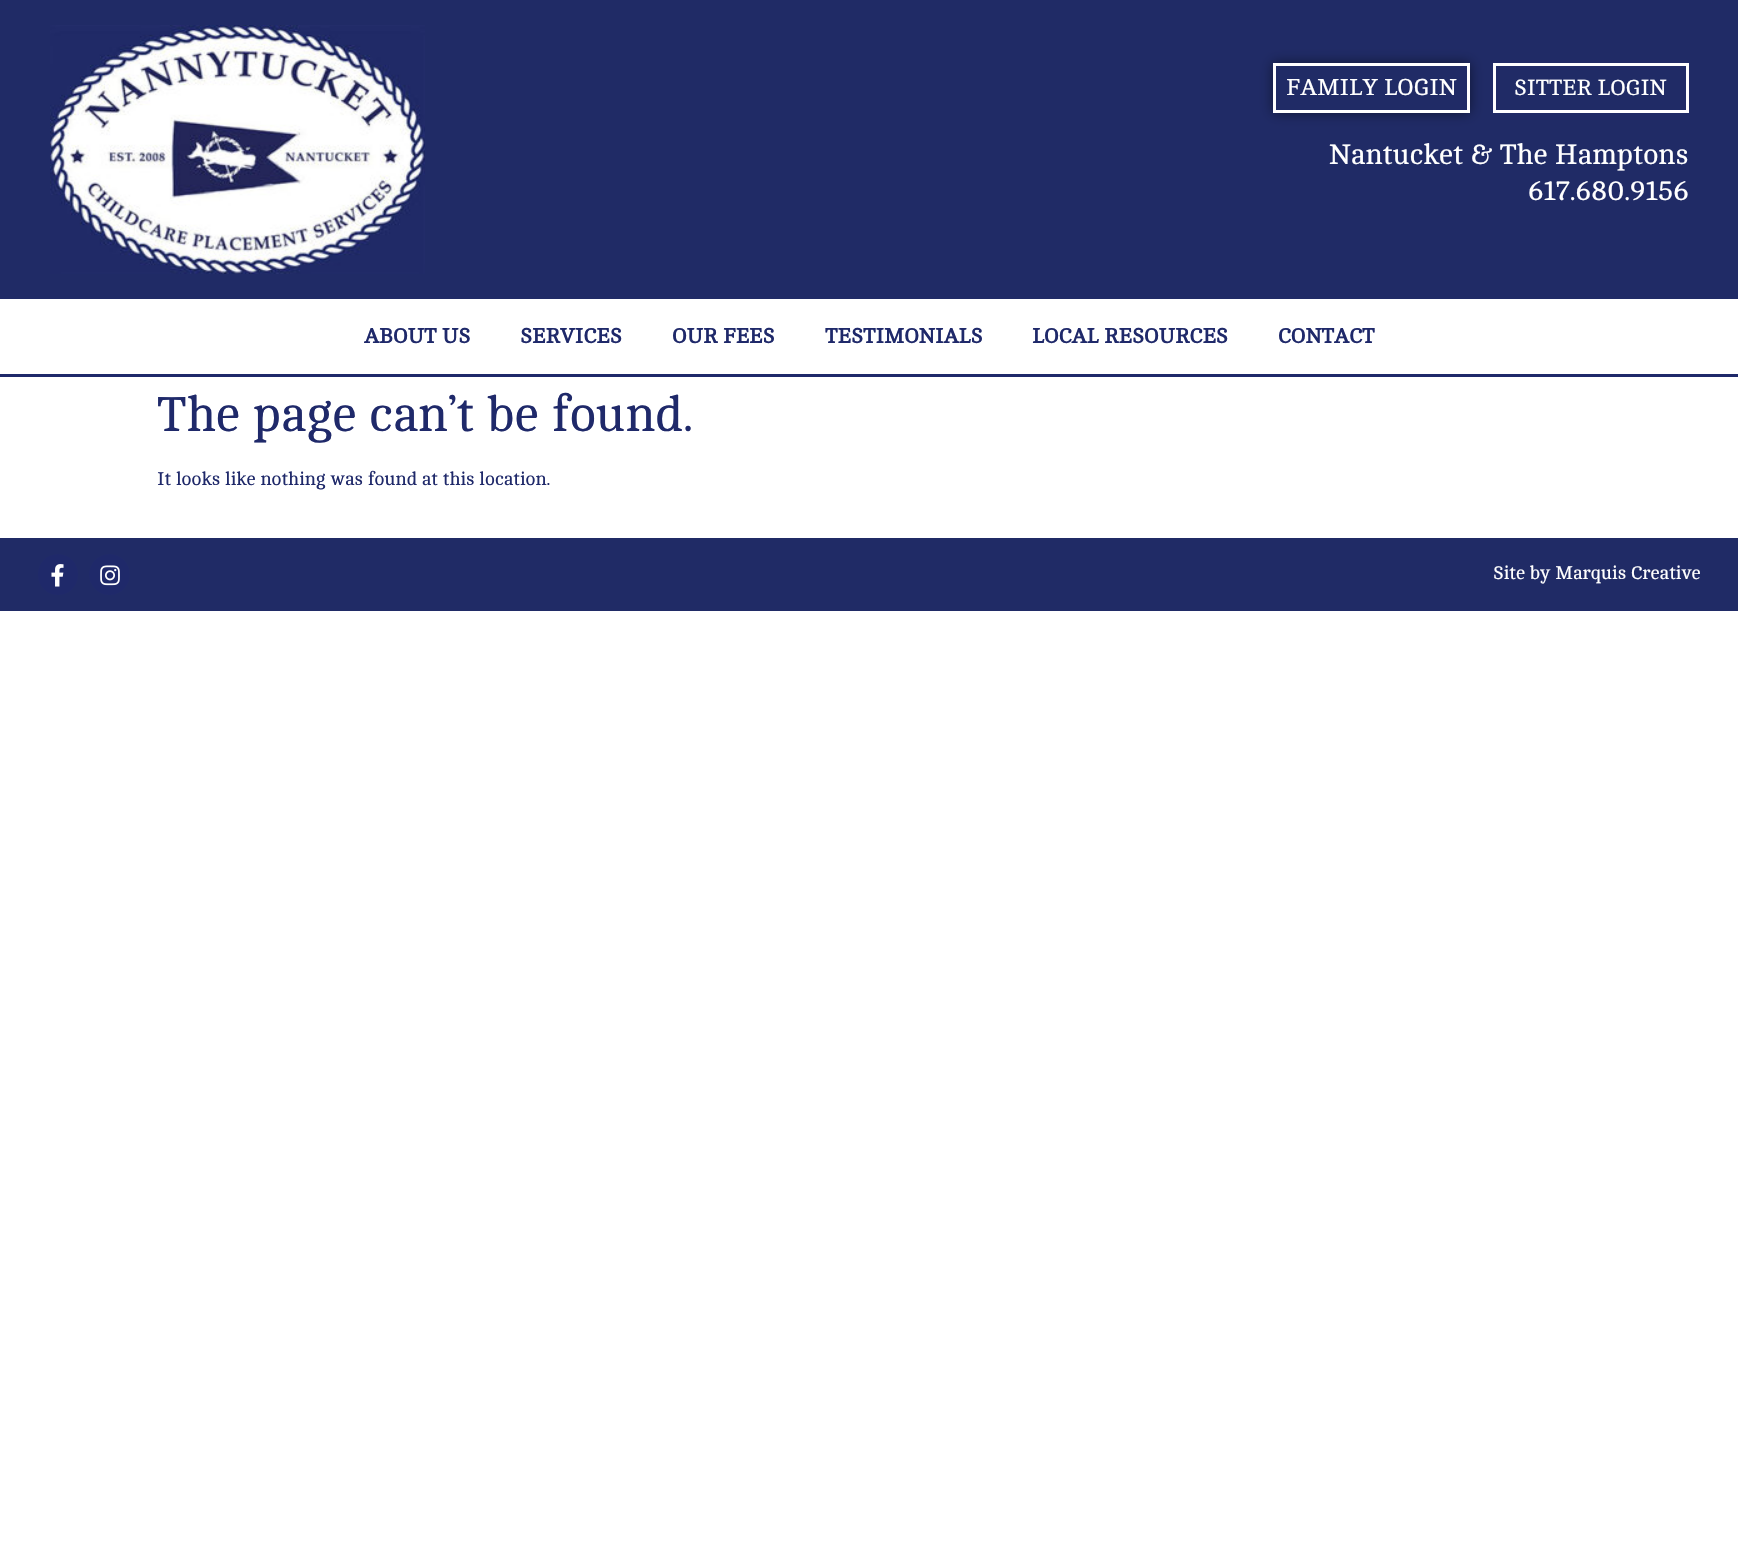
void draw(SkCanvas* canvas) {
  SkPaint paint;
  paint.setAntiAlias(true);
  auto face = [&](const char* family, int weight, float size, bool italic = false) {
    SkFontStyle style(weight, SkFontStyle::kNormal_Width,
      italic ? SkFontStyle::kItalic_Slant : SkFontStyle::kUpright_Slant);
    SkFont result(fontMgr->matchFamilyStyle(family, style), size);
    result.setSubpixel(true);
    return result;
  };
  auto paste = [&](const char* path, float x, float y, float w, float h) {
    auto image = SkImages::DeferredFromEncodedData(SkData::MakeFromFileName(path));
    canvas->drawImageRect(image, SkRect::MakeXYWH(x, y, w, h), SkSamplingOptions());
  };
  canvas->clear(0xffffffff);
  paint.setColor(0xff202b66);
  canvas->drawRect(SkRect::MakeXYWH(0, 0, 1738, 299), paint);
  paste("img/1.png", 50, 25, 375, 249);
  paint.setColor(0x80000000);
  paint.setMaskFilter(SkMaskFilter::MakeBlur(kNormal_SkBlurStyle, 6));
  canvas->drawRect(SkRect::MakeXYWH(1273, 63, 197, 50), paint);
  paint.setMaskFilter(nullptr);
  paint.setColor(0xff202b66);
  canvas->drawRect(SkRect::MakeXYWH(1274.5f, 64.5f, 194, 47), paint);
  paint.setStroke(true);
  paint.setStrokeWidth(3);
  paint.setColor(0xffffffff);
  canvas->drawRect(SkRect::MakeXYWH(1274.5f, 64.5f, 194, 47), paint);
  canvas->drawRect(SkRect::MakeXYWH(1494.5f, 64.5f, 193, 47), paint);
  paint.setStroke(false);
  paint.setColor(0xff1f296a);
  canvas->drawRect(SkRect::MakeXYWH(0, 374, 1738, 3), paint);
  paint.setColor(0xff202b66);
  canvas->drawRect(SkRect::MakeXYWH(0, 538, 1738, 73), paint);
  paint.setColor(0xff1f296a);
  canvas->drawRoundRect(SkRect::MakeXYWH(38, 554, 40, 41), 20, 20, paint);
  paste("img/2.png", 51, 564, 13, 23);
  canvas->drawCircle(109.5f, 574.5f, 20.5f, paint);
  paste("img/3.png", 100, 565, 20, 21);
  auto f0 = face("Cambo", 400, 23.75f);
  paint.setColor(0xffffffff);
  canvas->drawString("FAMILY LOGIN", 1286, 95, f0, paint);
  auto f1 = face("Cambo", 400, 22.5f);
  canvas->drawString("SITTER LOGIN", 1514, 95, f1, paint);
  auto f2 = face("Cambo", 400, 28.75f);
  canvas->drawString("Nantucket & The Hamptons", 1329, 164, f2, paint);
  canvas->drawString("617.680.9156", 1528, 200, f2, paint);
  auto f3 = face("Cambo", 700, 21.25f);
  paint.setColor(0xff1f296a);
  {
    const struct { const char* s; float x, y; } items[] = {
      {"ABOUT US", 364, 343},
      {"SERVICES", 520, 343},
      {"OUR FEES", 672, 343},
      {"TESTIMONIALS", 825, 343},
      {"LOCAL RESOURCES", 1032, 343},
      {"CONTACT", 1278, 343},
    };
    for (auto [s, x, y] : items) {
      canvas->drawString(s, x, y, f3, paint);
    }
  }
  auto f4 = face("Cambo", 400, 50);
  canvas->drawString("The page can’t be found.", 157, 431, f4, paint);
  auto f5 = face("Cambo", 400, 18.75f);
  canvas->drawString("It looks like nothing was found at this location.", 157, 485, f5, paint);
  paint.setColor(0xffffffff);
  canvas->drawString("Site by Marquis Creative", 1493, 579, f5, paint);
}
